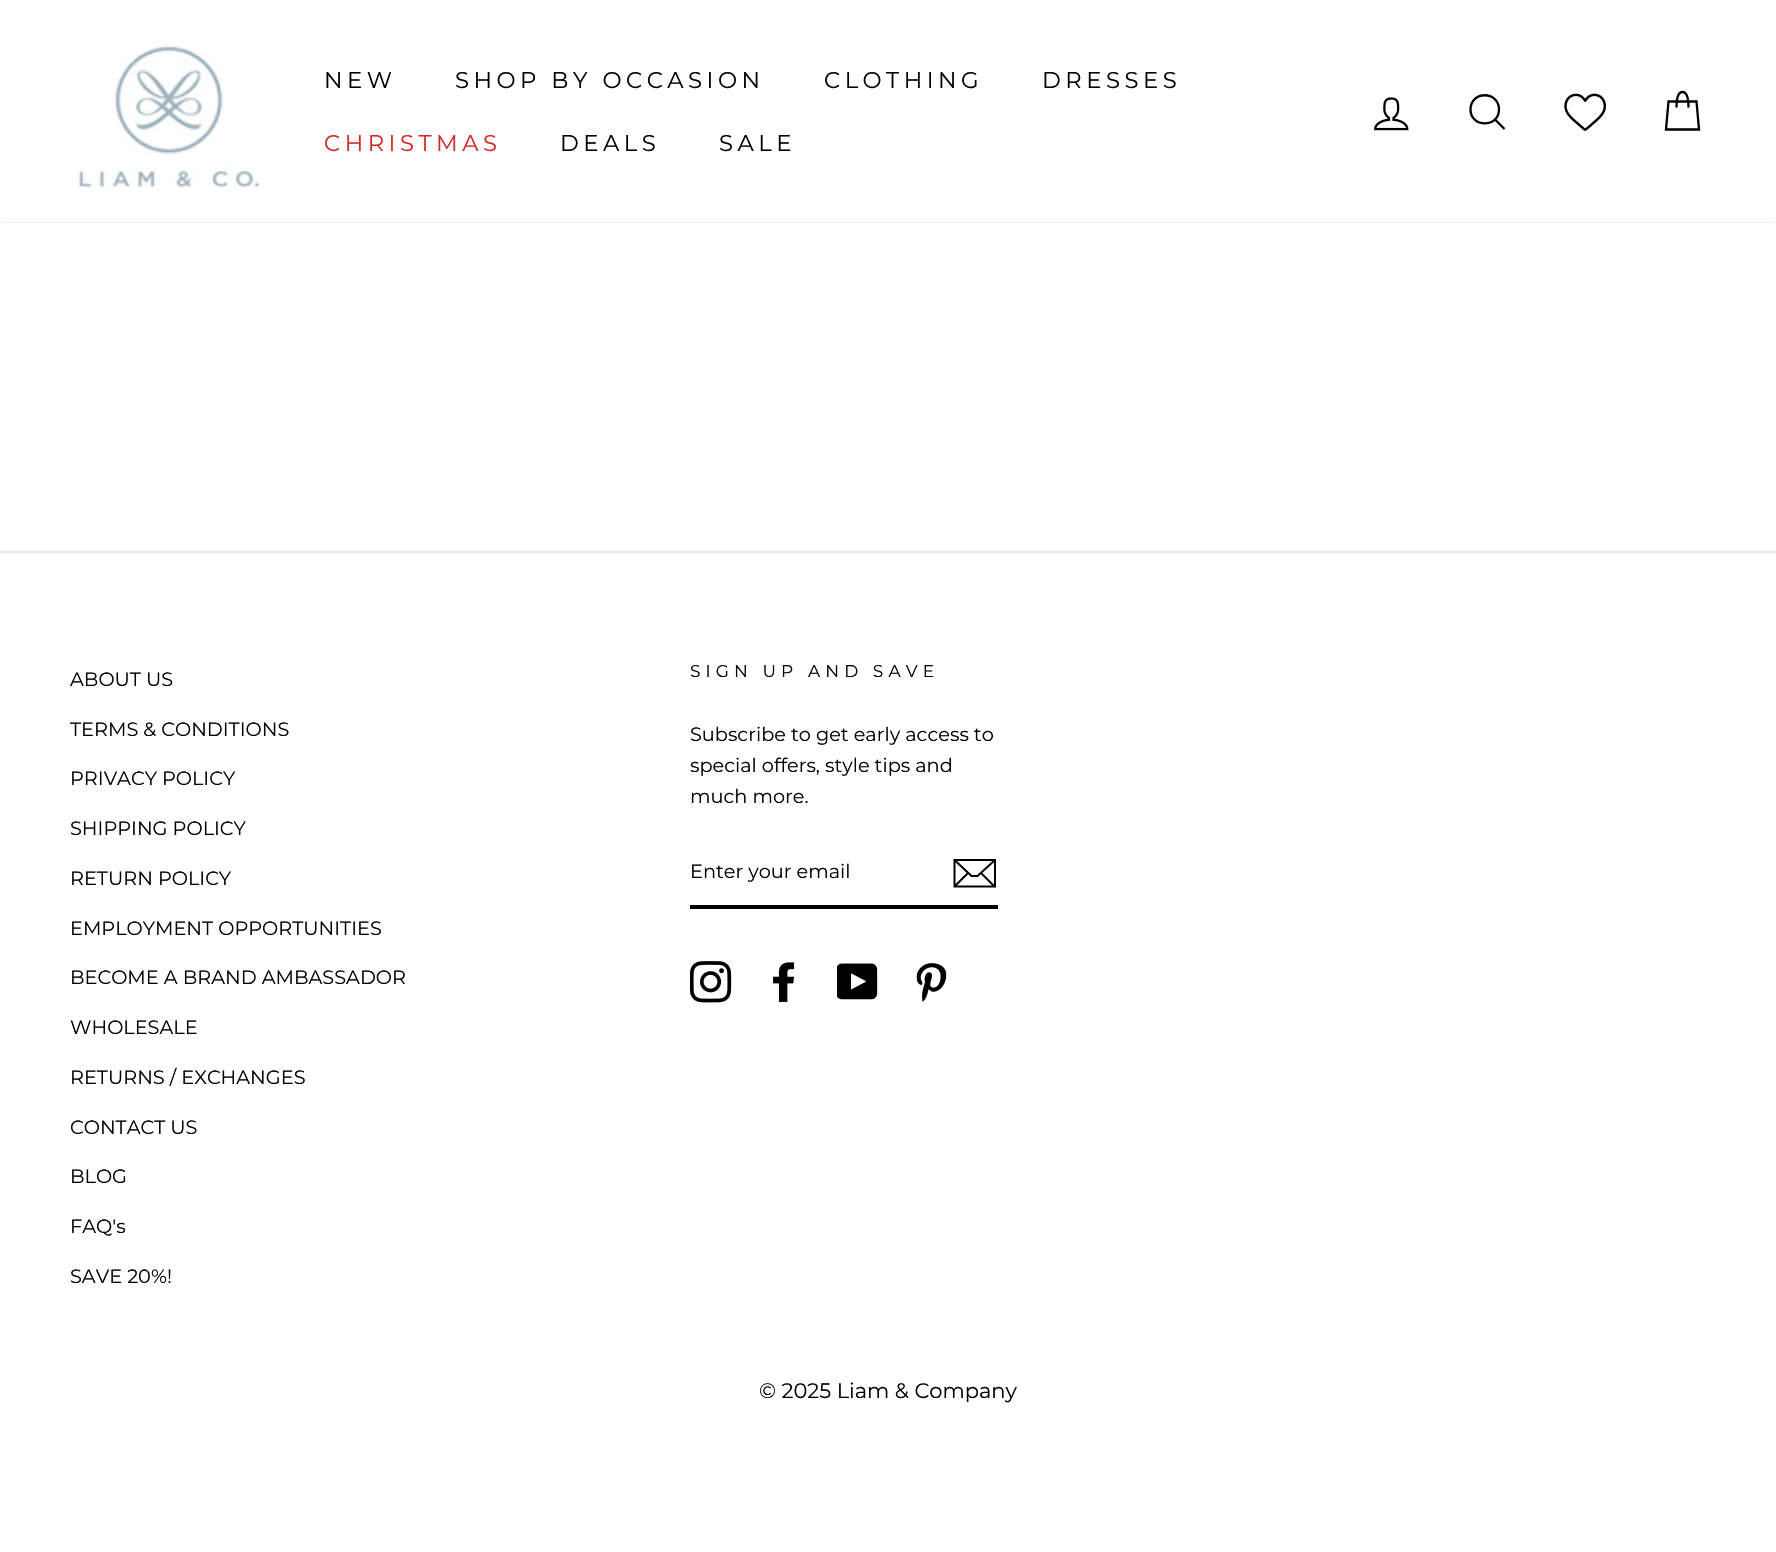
void draw(SkCanvas* canvas) {
  SkPaint paint;
  paint.setAntiAlias(true);
  auto face = [&](const char* family, int weight, float size, bool italic = false) {
    SkFontStyle style(weight, SkFontStyle::kNormal_Width,
      italic ? SkFontStyle::kItalic_Slant : SkFontStyle::kUpright_Slant);
    SkFont result(fontMgr->matchFamilyStyle(family, style), size);
    result.setSubpixel(true);
    return result;
  };
  auto writeSpaced = [&](const char* s, float x, float y, const SkFont& font, const SkPaint& ink, float letter, float word) {
    std::vector<SkGlyphID> glyphs(font.countText(s, strlen(s), SkTextEncoding::kUTF8));
    std::vector<float> xs(glyphs.size());
    font.textToGlyphs(s, strlen(s), SkTextEncoding::kUTF8, glyphs);
    font.getXPos(glyphs, xs, x);
    float extra = 0;
    for (size_t i = 0; i < glyphs.size(); i++) {
      xs[i] += extra;
      extra += letter + word * (glyphs[i] == font.unicharToGlyph(' '));
    }
    canvas->drawTextBlob(SkTextBlob::MakeFromPosHGlyphs(glyphs, xs, y, font), 0, 0, ink);
  };
  auto paste = [&](const char* path, float x, float y, float w, float h) {
    auto image = SkImages::DeferredFromEncodedData(SkData::MakeFromFileName(path));
    canvas->drawImageRect(image, SkRect::MakeXYWH(x, y, w, h), SkSamplingOptions());
  };
  auto shape = [&](const char* data, bool evenOdd = false) {
    SkPath result = *SkParsePath::FromSVGString(data);
    if (evenOdd) result.setFillType(SkPathFillType::kEvenOdd);
    return result;
  };
  canvas->clear(0xffffffff);
  canvas->save();
  canvas->clipRect(SkRect::MakeXYWH(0, 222, 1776, 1));
  paint.setColor(0x33000000);
  paint.setMaskFilter(SkMaskFilter::MakeBlur(kNormal_SkBlurStyle, 1));
  canvas->drawRect(SkRect::MakeXYWH(0, 0, 1776, 222), paint);
  paint.setMaskFilter(nullptr);
  canvas->restore();
  paste("img/1.png", 78, 35, 182, 152);
  paste("img/2.png", 1374, 97, 35, 34);
  paint.setStroke(true);
  paint.setStrokeWidth(2.3f);
  paint.setColor(0xff000000);
  canvas->drawPath(shape("M1499 109.5C1499 128 1470.5 128 1470.5 109.5C1470.5 90.5 1499 90.5 1499 109.5ZM1504.5 129L1495 119.5"), paint);
  paste("img/3.png", 1564, 93, 43, 38);
  canvas->drawPath(shape("M1676.5 107.5C1676.5 95.5 1679 92 1682.5 92C1686 92 1688.5 95.5 1688.5 107.5M1668.5 101.5H1696.5L1699 129.5H1666Z"), paint);
  paint.setStroke(false);
  paint.setColor(0xffe8e8e1);
  canvas->drawRect(SkRect::MakeXYWH(0, 551, 1776, 2), paint);
  paint.setColor(0xff000000);
  canvas->drawRect(SkRect::MakeXYWH(690, 905, 308, 4), paint);
  paint.setStroke(true);
  paint.setStrokeWidth(2);
  canvas->drawPath(shape("M995 886.5H954.5V860H995ZM954.5 860L971.5 876H977.5L995 860M968 873L955 886M994.5 886.5L981 873"), paint);
  paste("img/4.png", 690, 961, 42, 42);
  paste("img/5.png", 773, 962, 22, 40);
  paste("img/6.png", 837, 963, 41, 37);
  paste("img/7.png", 916, 963, 31, 39);
  auto f0 = face("Montserrat", 400, 22.75f);
  paint.setStroke(false);
  {
    const struct { const char* s; float x, y; } items[] = {
      {"NEW", 324, 88},
      {"SHOP BY OCCASION", 455, 88},
      {"CLOTHING", 824, 88},
      {"DRESSES", 1042, 88},
    };
    for (auto [s, x, y] : items) {
      writeSpaced(s, x, y, f0, paint, 4.5f, 0);
    }
  }
  paint.setColor(0xffd62828);
  writeSpaced("CHRISTMAS", 324, 151, f0, paint, 4.5f, 0);
  paint.setColor(0xff000000);
  writeSpaced("DEALS", 560, 151, f0, paint, 4.5f, 0);
  writeSpaced("SALE", 719, 151, f0, paint, 4.5f, 0);
  auto f1 = face("Montserrat", 400, 19.3f);
  {
    const struct { const char* s; float x, y; } items[] = {
      {"ABOUT US", 70, 686},
      {"TERMS & CONDITIONS", 70, 736},
      {"PRIVACY POLICY", 70, 785},
      {"SHIPPING POLICY", 70, 835},
      {"RETURN POLICY", 70, 885},
      {"EMPLOYMENT OPPORTUNITIES", 70, 935},
      {"BECOME A BRAND AMBASSADOR", 70, 984},
      {"WHOLESALE", 70, 1034},
      {"RETURNS / EXCHANGES", 70, 1084},
      {"CONTACT US", 70, 1134},
      {"BLOG", 70, 1183},
      {"FAQ's", 70, 1233},
      {"SAVE 20%!", 70, 1283},
    };
    for (auto [s, x, y] : items) {
      canvas->drawString(s, x, y, f1, paint);
    }
  }
  auto f2 = face("Montserrat", 400, 17);
  writeSpaced("SIGN UP AND SAVE", 690, 677, f2, paint, 5.1f, 0);
  {
    const struct { const char* s; float x, y; } items[] = {
      {"Subscribe to get early access to", 690, 741},
      {"special offers, style tips and", 690, 772},
      {"much more.", 690, 803},
      {"Enter your email", 690, 878},
    };
    for (auto [s, x, y] : items) {
      canvas->drawString(s, x, y, f1, paint);
    }
  }
  auto f3 = face("Montserrat", 400, 21);
  canvas->drawString("© 2025 Liam & Company", 759, 1398, f3, paint);
}
